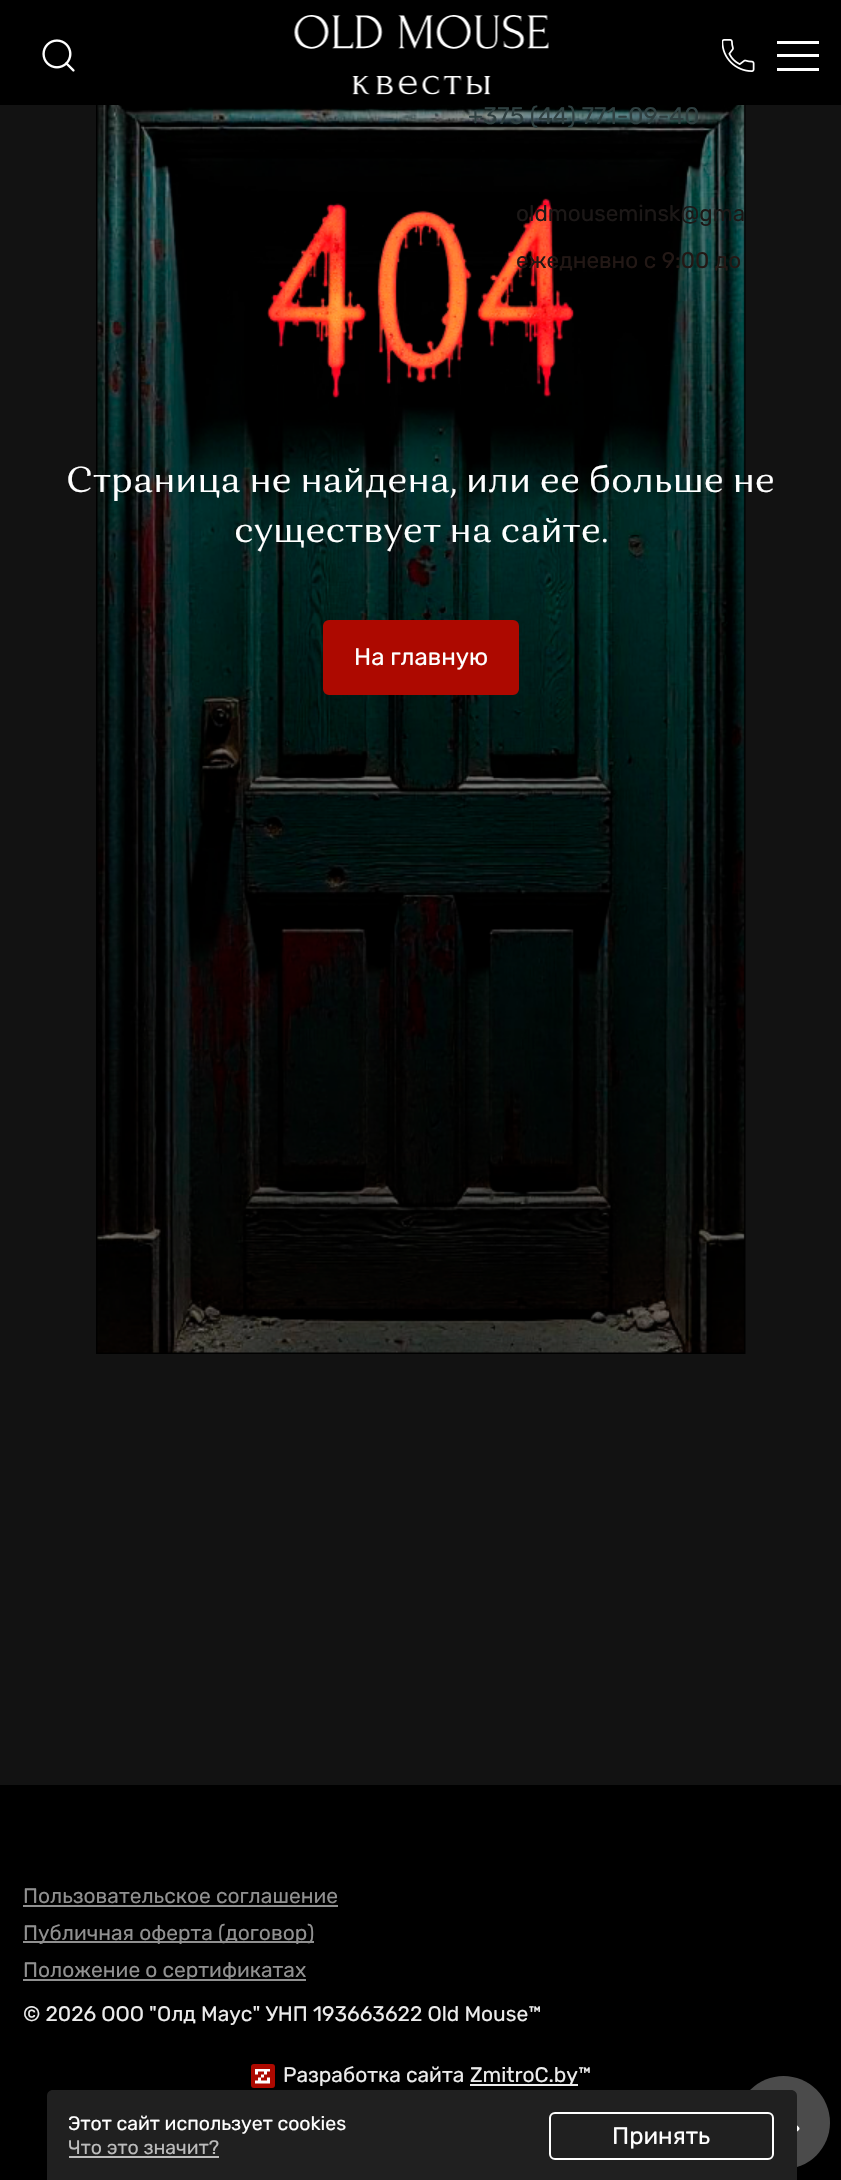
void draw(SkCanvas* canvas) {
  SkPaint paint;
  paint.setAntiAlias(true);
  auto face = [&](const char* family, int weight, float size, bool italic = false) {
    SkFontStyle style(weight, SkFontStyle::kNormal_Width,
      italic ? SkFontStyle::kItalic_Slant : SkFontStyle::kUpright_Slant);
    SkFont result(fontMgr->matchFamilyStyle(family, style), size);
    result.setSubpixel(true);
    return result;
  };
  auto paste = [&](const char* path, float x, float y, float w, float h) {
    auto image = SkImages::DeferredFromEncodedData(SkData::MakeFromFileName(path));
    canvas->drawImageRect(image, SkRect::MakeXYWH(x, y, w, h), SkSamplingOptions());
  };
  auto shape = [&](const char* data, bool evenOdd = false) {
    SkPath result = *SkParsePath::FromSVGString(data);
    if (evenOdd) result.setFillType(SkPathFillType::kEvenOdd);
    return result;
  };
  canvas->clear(0xff121212);
  paint.setColor(0xff000000);
  canvas->drawRect(SkRect::MakeXYWH(0, 0, 841, 105), paint);
  paste("img/1.png", 42, 39, 33, 33);
  paste("img/2.png", 294, 15, 255, 80);
  {
    const struct { float x, y, w, h; SkColor color; } items[] = {
      {777, 41, 42, 3, 0xffffffff},
      {777, 54, 42, 3, 0xffffffff},
      {777, 68, 42, 3, 0xffffffff},
    };
    for (auto [x, y, w, h, color] : items) {
      paint.setColor(color);
      canvas->drawRect(SkRect::MakeXYWH(x, y, w, h), paint);
    }
  }
  paste("img/3.png", 722, 39, 33, 33);
  paste("img/4.png", 96, 105, 650, 1249);
  paste("img/5.png", 267, 198, 308, 201);
  paint.setColor(0xffad0900);
  canvas->drawRoundRect(SkRect::MakeXYWH(324, 621, 194, 73), 5, 5, paint);
  paint.setStroke(true);
  paint.setStrokeWidth(2);
  canvas->drawRoundRect(SkRect::MakeXYWH(324, 621, 194, 73), 5, 5, paint);
  paint.setStroke(false);
  {
    const struct { float x, y, w, h; SkColor color; } items[] = {
      {0, 1785, 841, 395, 0xff000000},
      {23, 1905, 315, 2, 0xff909090},
      {23, 1941, 291, 2, 0xff909090},
      {23, 1979, 283, 2, 0xff909090},
    };
    for (auto [x, y, w, h, color] : items) {
      paint.setColor(color);
      canvas->drawRect(SkRect::MakeXYWH(x, y, w, h), paint);
    }
  }
  paint.setColor(0xffad0900);
  canvas->drawRoundRect(SkRect::MakeXYWH(251, 2064, 24, 24), 3, 3, paint);
  paste("img/6.png", 255, 2069, 15, 15);
  paint.setColor(0xffececec);
  canvas->drawRect(SkRect::MakeXYWH(470, 2084, 108, 2), paint);
  paint.setColor(0xff4b4b4b);
  canvas->drawCircle(783.5f, 2122.5f, 46.5f, paint);
  paint.setColor(0xff202020);
  canvas->drawPath(shape("M53 2090H791C794.5 2090 797 2092.5 797 2096V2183H47V2096C47 2092.5 49.5 2090 53 2090Z"), paint);
  paint.setColor(0xffbcbcbc);
  canvas->drawRect(SkRect::MakeXYWH(69, 2156, 150, 2), paint);
  paint.setStroke(true);
  paint.setColor(0xffffffff);
  canvas->drawRoundRect(SkRect::MakeXYWH(550, 2113, 223, 46), 5, 5, paint);
  paste("img/7.png", 797, 2125, 3, 7);
  auto f0 = face("Rubik", 400, 24);
  paint.setStroke(false);
  paint.setColor(0xff2f4041);
  canvas->drawString("+375 (44) 771-09-40", 468, 124, f0, paint);
  auto f1 = face("Rubik", 400, 22.5f);
  paint.setColor(0xff1c1817);
  canvas->drawString("oldmouseminsk@gma", 516, 221, f1, paint);
  paint.setColor(0xff231815);
  canvas->drawString("ежедневно с 9:00 до", 516, 268, f1, paint);
  auto f2 = face("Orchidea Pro", 400, 36);
  paint.setColor(0xffffffff);
  canvas->drawString("Страница не найдена, или ее больше не", 66, 492, f2, paint);
  canvas->drawString("существует на сайте.", 234, 542, f2, paint);
  canvas->drawString("На главную", 354, 665, f0, paint);
  auto f3 = face("Rubik", 400, 21);
  paint.setColor(0xff909090);
  {
    const struct { const char* s; float x, y; } items[] = {
      {"Пользовательское соглашение", 23, 1903},
      {"Публичная оферта (договор)", 23, 1940},
      {"Положение о сертификатах", 23, 1977},
    };
    for (auto [s, x, y] : items) {
      canvas->drawString(s, x, y, f3, paint);
    }
  }
  paint.setColor(0xffececec);
  {
    const struct { const char* s; float x, y; } items[] = {
      {"© 2026 ООО \"Олд Маус\" УНП 193663622 Old Mouse™", 23, 2021},
      {"Разработка сайта", 283, 2082},
      {"ZmitroC.by", 470, 2082},
      {"™", 578, 2082},
    };
    for (auto [s, x, y] : items) {
      canvas->drawString(s, x, y, f3, paint);
    }
  }
  auto f4 = face("Rubik", 400, 19.5f);
  paint.setColor(0xffffffff);
  canvas->drawString("Этот сайт использует cookies", 68, 2130, f4, paint);
  paint.setColor(0xffbcbcbc);
  canvas->drawString("Что это значит?", 68, 2154, f4, paint);
  paint.setColor(0xffffffff);
  canvas->drawString("Принять", 612, 2144, f0, paint);
}
